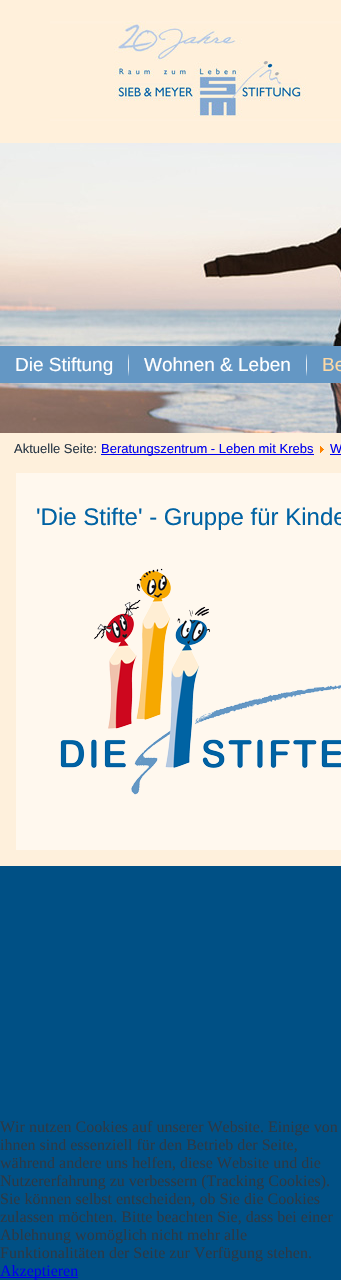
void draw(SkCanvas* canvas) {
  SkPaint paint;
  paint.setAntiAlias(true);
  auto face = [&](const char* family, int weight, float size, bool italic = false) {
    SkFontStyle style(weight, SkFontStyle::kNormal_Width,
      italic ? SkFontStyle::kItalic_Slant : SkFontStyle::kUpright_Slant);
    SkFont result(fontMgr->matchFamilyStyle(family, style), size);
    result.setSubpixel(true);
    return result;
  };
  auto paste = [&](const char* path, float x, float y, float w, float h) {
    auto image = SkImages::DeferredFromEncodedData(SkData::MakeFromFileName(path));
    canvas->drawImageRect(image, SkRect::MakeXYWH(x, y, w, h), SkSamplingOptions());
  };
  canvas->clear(0xff005085);
  paste("img/1.png", 0, 0, 341, 143);
  paste("img/3.png", 0, 143, 341, 290);
  paint.setColor(0xff6497c4);
  canvas->drawRect(SkRect::MakeXYWH(0, 346, 341, 37), paint);
  paste("img/2.png", 128, 354, 1, 22);
  paste("img/2.png", 306, 354, 1, 22);
  paint.setColor(0xfffef0dc);
  canvas->drawRect(SkRect::MakeXYWH(0, 433, 341, 433), paint);
  paint.setColor(0xff0000ee);
  canvas->drawRect(SkRect::MakeXYWH(101, 454, 213, 1), paint);
  paste("img/4.png", 320, 446, 4, 7);
  canvas->drawRect(SkRect::MakeXYWH(330, 454, 11, 1), paint);
  paint.setColor(0xfffff8ee);
  canvas->drawRect(SkRect::MakeXYWH(16, 473, 325, 377), paint);
  paste("img/5.png", 60, 568, 281, 227);
  paint.setColor(0xff0000ee);
  canvas->drawRect(SkRect::MakeXYWH(0, 1277, 78, 1), paint);
  auto f0 = face("Liberation Sans", 400, 19);
  paint.setColor(0xffffffff);
  canvas->drawString("Die Stiftung", 15, 371, f0, paint);
  canvas->drawString("Wohnen & Leben", 144, 371, f0, paint);
  paint.setColor(0xfffdd9a5);
  canvas->drawString("Be", 322, 371, f0, paint);
  auto f1 = face("Liberation Sans", 400, 13);
  paint.setColor(0xff2a3846);
  canvas->drawString("Aktuelle Seite:", 14, 453, f1, paint);
  paint.setColor(0xff0000ee);
  canvas->drawString("Beratungszentrum - Leben mit Krebs", 101, 453, f1, paint);
  canvas->drawString("W", 330, 453, f1, paint);
  auto f2 = face("Liberation Sans", 400, 24);
  paint.setColor(0xff0062a3);
  canvas->drawString("'Die Stifte' - Gruppe für Kinde", 36, 525, f2, paint);
  auto f3 = face("Liberation Serif", 400, 16);
  paint.setColor(0xff2a3846);
  {
    const struct { const char* s; float x, y; } items[] = {
      {"Wir nutzen Cookies auf unserer Website. Einige von", 0, 1132},
      {"ihnen sind essenziell für den Betrieb der Seite,", 0, 1150},
      {"während andere uns helfen, diese Website und die", 0, 1168},
      {"Nutzererfahrung zu verbessern (Tracking Cookies).", 0, 1186},
      {"Sie können selbst entscheiden, ob Sie die Cookies", 0, 1204},
      {"zulassen möchten. Bitte beachten Sie, dass bei einer", 0, 1222},
      {"Ablehnung womöglich nicht mehr alle", 0, 1240},
      {"Funktionalitäten der Seite zur Verfügung stehen.", 0, 1258},
    };
    for (auto [s, x, y] : items) {
      canvas->drawString(s, x, y, f3, paint);
    }
  }
  paint.setColor(0xff0000ee);
  canvas->drawString("Akzeptieren", 0, 1276, f3, paint);
}
